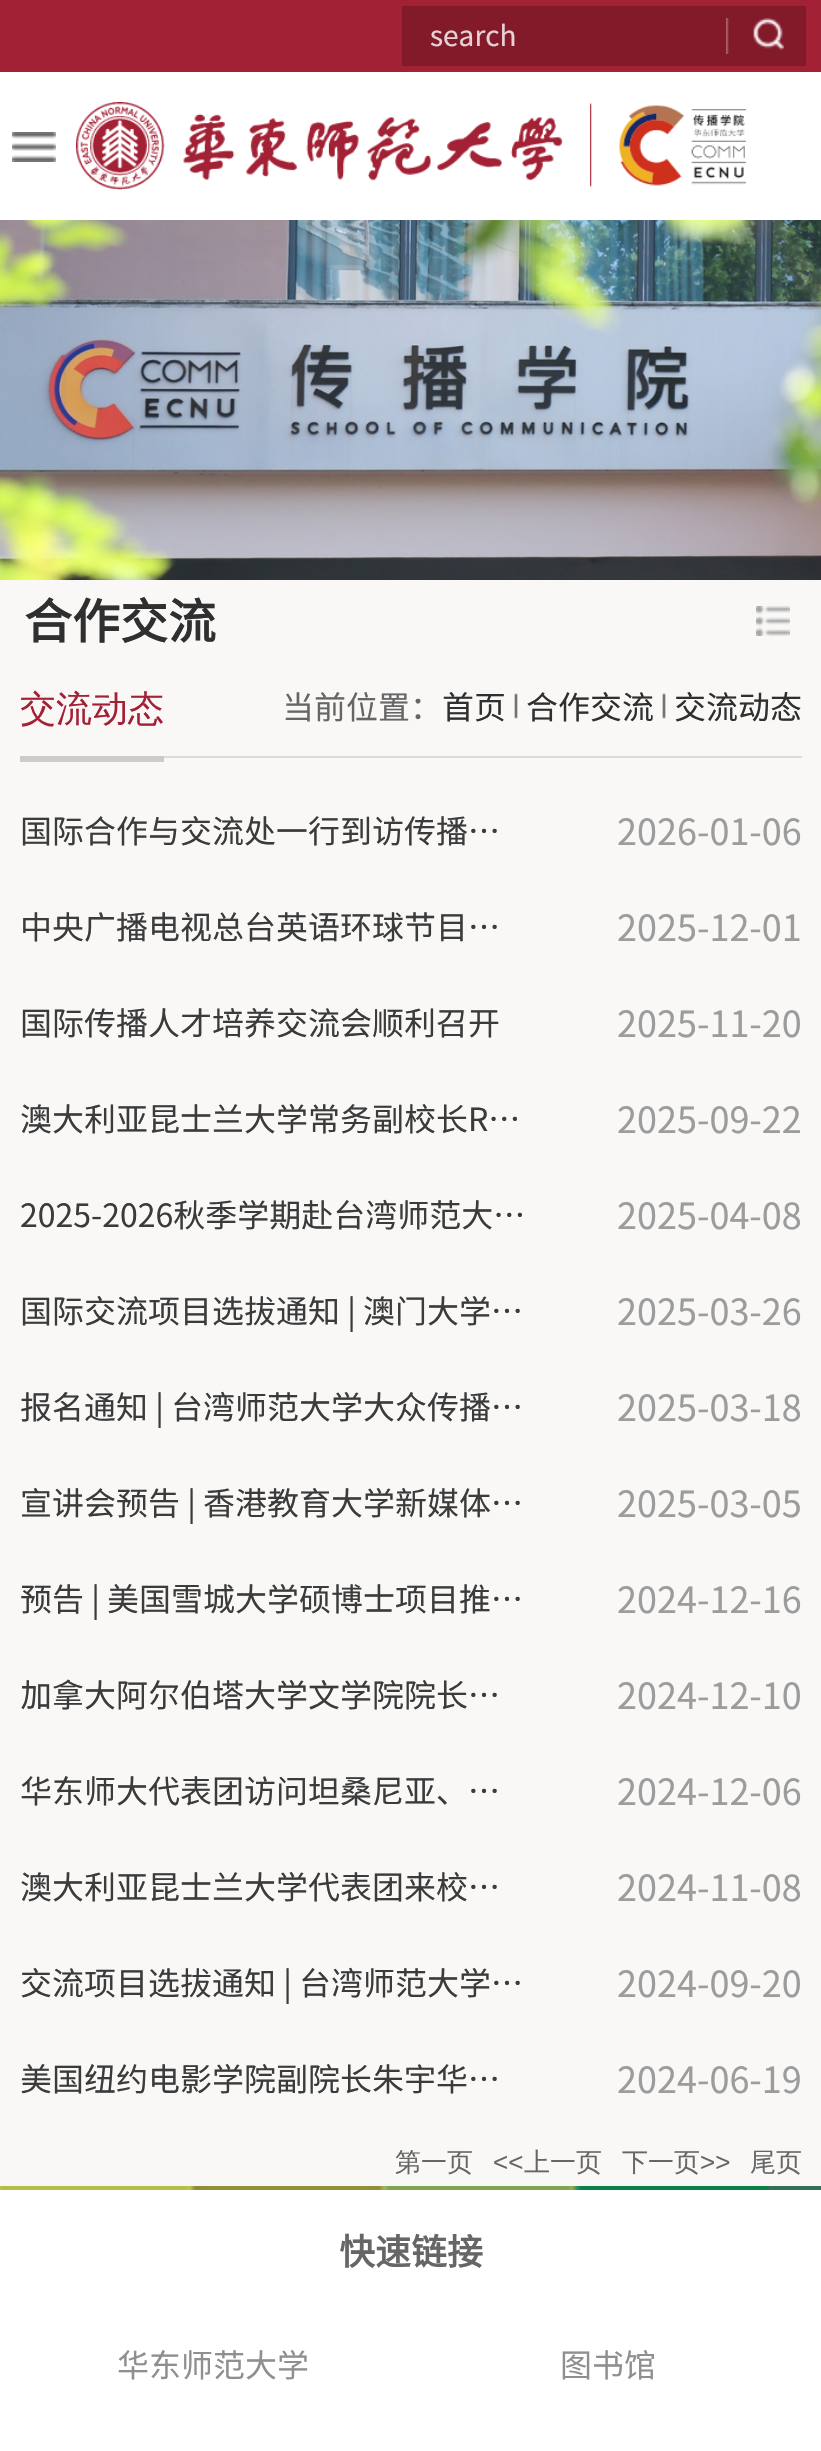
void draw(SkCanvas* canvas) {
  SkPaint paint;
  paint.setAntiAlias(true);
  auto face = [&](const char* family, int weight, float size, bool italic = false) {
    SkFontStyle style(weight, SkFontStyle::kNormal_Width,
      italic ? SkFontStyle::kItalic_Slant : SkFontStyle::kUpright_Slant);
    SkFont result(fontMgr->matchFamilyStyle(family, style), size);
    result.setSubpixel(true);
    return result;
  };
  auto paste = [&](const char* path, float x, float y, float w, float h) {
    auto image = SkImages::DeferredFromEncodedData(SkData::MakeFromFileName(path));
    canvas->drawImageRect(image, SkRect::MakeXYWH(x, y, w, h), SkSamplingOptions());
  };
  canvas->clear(0xffffffff);
  paint.setColor(0xffa32135);
  canvas->drawRect(SkRect::MakeXYWH(0, 0, 821, 72), paint);
  paint.setColor(0xff831a2a);
  canvas->drawRect(SkRect::MakeXYWH(402, 6, 404, 60), paint);
  paste("img/1.png", 726, 18, 58, 36);
  paste("img/2.png", 12, 132, 44, 30);
  paste("img/3.png", 76, 102, 670, 88);
  paste("img/4.png", 0, 220, 821, 360);
  paint.setColor(0xfff9f8f7);
  canvas->drawRect(SkRect::MakeXYWH(0, 580, 821, 1606), paint);
  paste("img/5.png", 756, 606, 34, 30);
  paint.setColor(0xffdbdbdb);
  canvas->drawRect(SkRect::MakeXYWH(164, 756, 638, 2), paint);
  paint.setColor(0xffcbcbcb);
  canvas->drawRect(SkRect::MakeXYWH(20, 756, 144, 6), paint);
  paste("img/6.png", 514, 693, 4, 26);
  paste("img/6.png", 662, 693, 4, 26);
  paste("img/7.png", 0, 2186, 821, 4);
  auto f0 = face("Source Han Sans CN", 400, 28);
  paint.setColor(0xffe6d1d4);
  canvas->drawString("search", 430, 46, f0, paint);
  auto f1 = face("Source Han Sans CN", 700, 48);
  paint.setColor(0xff2f2f2f);
  canvas->drawString("合作交流", 24, 639, f1, paint);
  auto f2 = face("WenQuanYi Zen Hei", 500, 36);
  paint.setColor(0xffa32135);
  canvas->drawString("交流动态", 20, 721, f2, paint);
  auto f3 = face("Source Han Sans CN", 400, 32);
  paint.setColor(0xff666666);
  canvas->drawString("当前位置：", 282, 719, f3, paint);
  paint.setColor(0xff2f2f2f);
  {
    const struct { const char* s; float x, y; } items[] = {
      {"首页", 442, 719},
      {"合作交流", 526, 719},
      {"交流动态", 674, 719},
    };
    for (auto [s, x, y] : items) {
      canvas->drawString(s, x, y, f3, paint);
    }
  }
  paint.setColor(0xff3b3b3b);
  canvas->drawString("国际合作与交流处一行到访传播…", 20, 843, f3, paint);
  auto f4 = face("Source Han Sans CN", 400, 36);
  paint.setColor(0xff9c9c9c);
  canvas->drawString("2026-01-06", 617, 845, f4, paint);
  paint.setColor(0xff3b3b3b);
  canvas->drawString("中央广播电视总台英语环球节目…", 20, 939, f3, paint);
  paint.setColor(0xff9c9c9c);
  canvas->drawString("2025-12-01", 617, 941, f4, paint);
  paint.setColor(0xff3b3b3b);
  canvas->drawString("国际传播人才培养交流会顺利召开", 20, 1035, f3, paint);
  paint.setColor(0xff9c9c9c);
  canvas->drawString("2025-11-20", 617, 1037, f4, paint);
  paint.setColor(0xff3b3b3b);
  canvas->drawString("澳大利亚昆士兰大学常务副校长R…", 20, 1131, f3, paint);
  paint.setColor(0xff9c9c9c);
  canvas->drawString("2025-09-22", 617, 1133, f4, paint);
  paint.setColor(0xff3b3b3b);
  canvas->drawString("2025-2026秋季学期赴台湾师范大…", 20, 1227, f3, paint);
  paint.setColor(0xff9c9c9c);
  canvas->drawString("2025-04-08", 617, 1229, f4, paint);
  paint.setColor(0xff3b3b3b);
  canvas->drawString("国际交流项目选拔通知 | 澳门大学…", 20, 1323, f3, paint);
  paint.setColor(0xff9c9c9c);
  canvas->drawString("2025-03-26", 617, 1325, f4, paint);
  paint.setColor(0xff3b3b3b);
  canvas->drawString("报名通知 | 台湾师范大学大众传播…", 20, 1419, f3, paint);
  paint.setColor(0xff9c9c9c);
  canvas->drawString("2025-03-18", 617, 1421, f4, paint);
  paint.setColor(0xff3b3b3b);
  canvas->drawString("宣讲会预告 | 香港教育大学新媒体…", 20, 1515, f3, paint);
  paint.setColor(0xff9c9c9c);
  canvas->drawString("2025-03-05", 617, 1517, f4, paint);
  paint.setColor(0xff3b3b3b);
  canvas->drawString("预告 | 美国雪城大学硕博士项目推…", 20, 1611, f3, paint);
  paint.setColor(0xff9c9c9c);
  canvas->drawString("2024-12-16", 617, 1613, f4, paint);
  paint.setColor(0xff3b3b3b);
  canvas->drawString("加拿大阿尔伯塔大学文学院院长…", 20, 1707, f3, paint);
  paint.setColor(0xff9c9c9c);
  canvas->drawString("2024-12-10", 617, 1709, f4, paint);
  paint.setColor(0xff3b3b3b);
  canvas->drawString("华东师大代表团访问坦桑尼亚、…", 20, 1803, f3, paint);
  paint.setColor(0xff9c9c9c);
  canvas->drawString("2024-12-06", 617, 1805, f4, paint);
  paint.setColor(0xff3b3b3b);
  canvas->drawString("澳大利亚昆士兰大学代表团来校…", 20, 1899, f3, paint);
  paint.setColor(0xff9c9c9c);
  canvas->drawString("2024-11-08", 617, 1901, f4, paint);
  paint.setColor(0xff3b3b3b);
  canvas->drawString("交流项目选拔通知 | 台湾师范大学…", 20, 1995, f3, paint);
  paint.setColor(0xff9c9c9c);
  canvas->drawString("2024-09-20", 617, 1997, f4, paint);
  paint.setColor(0xff3b3b3b);
  canvas->drawString("美国纽约电影学院副院长朱宇华…", 20, 2091, f3, paint);
  paint.setColor(0xff9c9c9c);
  canvas->drawString("2024-06-19", 617, 2093, f4, paint);
  auto f5 = face("WenQuanYi Zen Hei", 500, 26);
  paint.setColor(0xff666666);
  canvas->drawString("第一页", 395, 2171, f5, paint);
  auto f6 = face("Liberation Sans", 400, 26);
  canvas->drawString("<<", 493, 2171, f6, paint);
  canvas->drawString("上一页", 524, 2171, f5, paint);
  canvas->drawString("下一页", 622, 2171, f5, paint);
  canvas->drawString(">>", 700, 2171, f6, paint);
  canvas->drawString("尾页", 750, 2171, f5, paint);
  auto f7 = face("Source Han Sans CN", 700, 36);
  canvas->drawString("快速链接", 339, 2265, f7, paint);
  paint.setColor(0xff8f8f8f);
  canvas->drawString("华东师范大学", 117, 2377, f3, paint);
  canvas->drawString("图书馆", 560, 2377, f3, paint);
}
